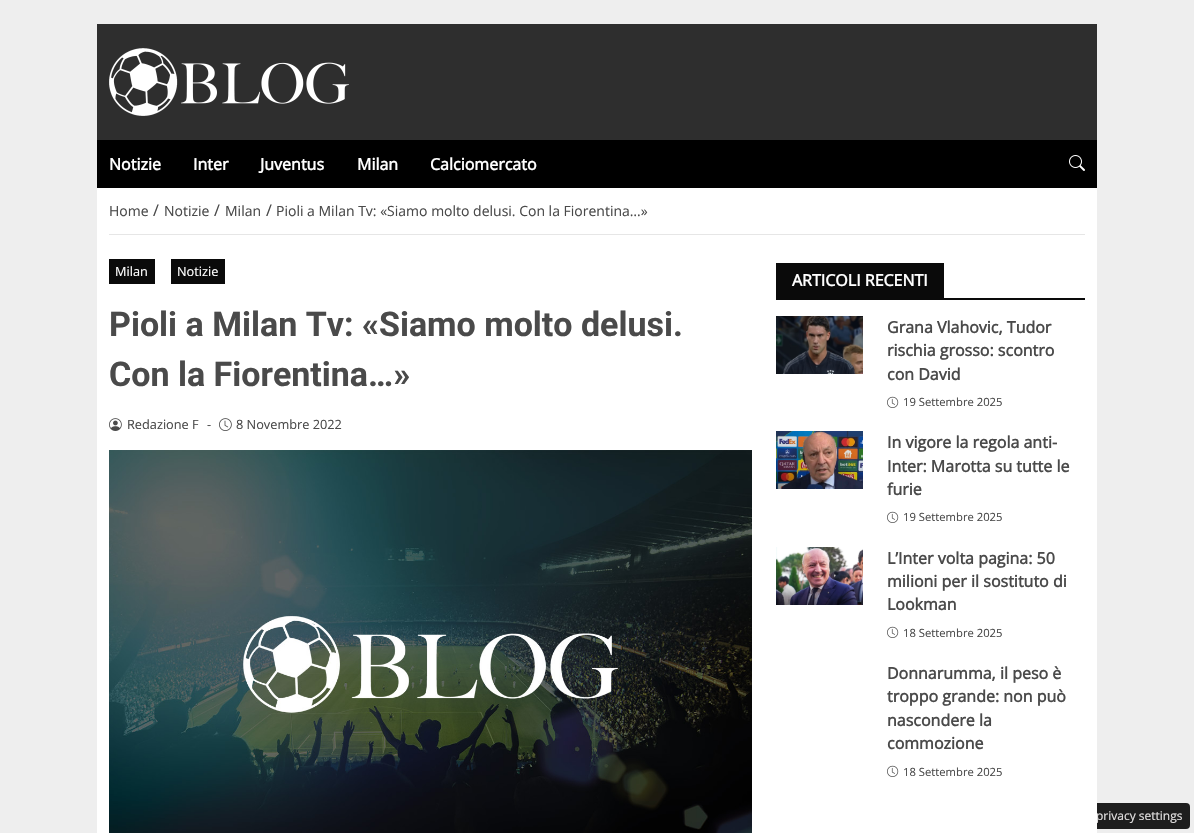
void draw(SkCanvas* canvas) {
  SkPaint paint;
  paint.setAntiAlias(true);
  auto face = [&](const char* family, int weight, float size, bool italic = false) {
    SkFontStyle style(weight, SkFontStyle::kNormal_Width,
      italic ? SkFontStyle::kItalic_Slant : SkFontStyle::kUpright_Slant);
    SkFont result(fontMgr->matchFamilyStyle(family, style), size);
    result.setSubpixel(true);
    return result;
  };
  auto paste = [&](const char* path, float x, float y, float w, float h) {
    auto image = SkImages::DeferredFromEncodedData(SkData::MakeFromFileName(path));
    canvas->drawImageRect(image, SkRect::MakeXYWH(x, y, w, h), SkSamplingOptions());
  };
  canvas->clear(0xffeeeeee);
  paint.setColor(0xff2e2e2e);
  canvas->drawRect(SkRect::MakeXYWH(97, 24, 1000, 116), paint);
  paste("img/1.png", 109, 48, 240, 68);
  paint.setColor(0xff000000);
  canvas->drawRect(SkRect::MakeXYWH(97, 140, 1000, 48), paint);
  paste("img/2.png", 1069, 155, 16, 16);
  paint.setColor(0xff1e1e1e);
  canvas->drawRoundRect(SkRect::MakeXYWH(1042, 803, 148, 26), 4, 4, paint);
  auto f0 = face("Open Sans", 700, 16);
  paint.setColor(0xffffffff);
  {
    const struct { const char* s; float x, y; } items[] = {
      {"Notizie", 109, 170},
      {"Inter", 193, 170},
      {"Juventus", 260, 170},
      {"Milan", 357, 170},
      {"Calciomercato", 430, 170},
    };
    for (auto [s, x, y] : items) {
      canvas->drawString(s, x, y, f0, paint);
    }
  }
  auto f1 = face("Open Sans", 400, 12);
  paint.setColor(0xffe3e1e1);
  canvas->drawString("privacy settings", 1096, 820, f1, paint);
  paint.setColor(0xffffffff);
  canvas->drawRect(SkRect::MakeXYWH(97, 188, 1000, 645), paint);
  paste("img/9.png", 776, 547, 87, 58);
  paste("img/8.png", 776, 431, 87, 58);
  paste("img/6.png", 776, 316, 87, 58);
  auto f2 = face("Open Sans", 400, 11.25f);
  paint.setColor(0xff4a4a4a);
  canvas->drawString("18 Settembre 2025", 903, 776, f2, paint);
  paste("img/7.png", 887, 765, 12, 12);
  {
    const struct { const char* s; float x, y; } items[] = {
      {"commozione", 887, 749},
      {"nascondere la", 887, 726},
      {"troppo grande: non può", 887, 702},
      {"Donnarumma, il peso è", 887, 679},
    };
    for (auto [s, x, y] : items) {
      canvas->drawString(s, x, y, f0, paint);
    }
  }
  canvas->drawString("18 Settembre 2025", 903, 637, f2, paint);
  paste("img/7.png", 887, 626, 12, 12);
  {
    const struct { const char* s; float x, y; } items[] = {
      {"Lookman", 887, 610},
      {"milioni per il sostituto di", 887, 587},
      {"L’Inter volta pagina: 50", 887, 564},
    };
    for (auto [s, x, y] : items) {
      canvas->drawString(s, x, y, f0, paint);
    }
  }
  canvas->drawString("19 Settembre 2025", 903, 521, f2, paint);
  paste("img/7.png", 887, 511, 12, 12);
  {
    const struct { const char* s; float x, y; } items[] = {
      {"furie", 887, 495},
      {"Inter: Marotta su tutte le", 887, 472},
      {"In vigore la regola anti-", 887, 448},
    };
    for (auto [s, x, y] : items) {
      canvas->drawString(s, x, y, f0, paint);
    }
  }
  canvas->drawString("19 Settembre 2025", 903, 406, f2, paint);
  paste("img/7.png", 887, 396, 12, 12);
  {
    const struct { const char* s; float x, y; } items[] = {
      {"con David", 887, 380},
      {"rischia grosso: scontro", 887, 356},
      {"Grana Vlahovic, Tudor", 887, 333},
    };
    for (auto [s, x, y] : items) {
      canvas->drawString(s, x, y, f0, paint);
    }
  }
  paint.setColor(0xff0a0a0a);
  canvas->drawRect(SkRect::MakeXYWH(776, 263, 168, 35), paint);
  paint.setColor(0xffffffff);
  canvas->drawString("ARTICOLI RECENTI", 792, 286, f0, paint);
  paint.setColor(0xff0a0a0a);
  canvas->drawRect(SkRect::MakeXYWH(776, 298, 309, 2), paint);
  paste("img/5.png", 109, 450, 643, 383);
  auto f3 = face("Open Sans", 400, 12.75f);
  paint.setColor(0xff4a4a4a);
  canvas->drawString("8 Novembre 2022", 236, 429, f3, paint);
  paste("img/4.png", 219, 418, 13, 13);
  canvas->drawString("-", 207, 429, f3, paint);
  canvas->drawString("Redazione F", 127, 429, f3, paint);
  paste("img/3.png", 109, 418, 13, 13);
  auto f4 = face("Roboto", 700, 34);
  canvas->drawString("Con la Fiorentina…»", 109, 386, f4, paint);
  canvas->drawString("Pioli a Milan Tv: «Siamo molto delusi.", 109, 336, f4, paint);
  paint.setColor(0xff0a0a0a);
  canvas->drawRect(SkRect::MakeXYWH(171, 259, 54, 25), paint);
  paint.setColor(0xffffffff);
  canvas->drawString("Notizie", 177, 276, f3, paint);
  paint.setColor(0xff0a0a0a);
  canvas->drawRect(SkRect::MakeXYWH(109, 259, 46, 25), paint);
  paint.setColor(0xffffffff);
  canvas->drawString("Milan", 115, 276, f3, paint);
  auto f5 = face("Open Sans", 400, 14);
  paint.setColor(0xff4a4a4a);
  canvas->drawString("Pioli a Milan Tv: «Siamo molto delusi. Con la Fiorentina…»", 276, 216, f5, paint);
  auto f6 = face("Open Sans", 400, 16);
  canvas->drawString("/", 266, 216, f6, paint);
  canvas->drawString("Milan", 225, 216, f5, paint);
  canvas->drawString("/", 214, 216, f6, paint);
  canvas->drawString("Notizie", 164, 216, f5, paint);
  canvas->drawString("/", 153, 216, f6, paint);
  canvas->drawString("Home", 109, 216, f5, paint);
  paint.setColor(0xffe6e6e6);
  canvas->drawRect(SkRect::MakeXYWH(109, 234, 976, 1), paint);
}
